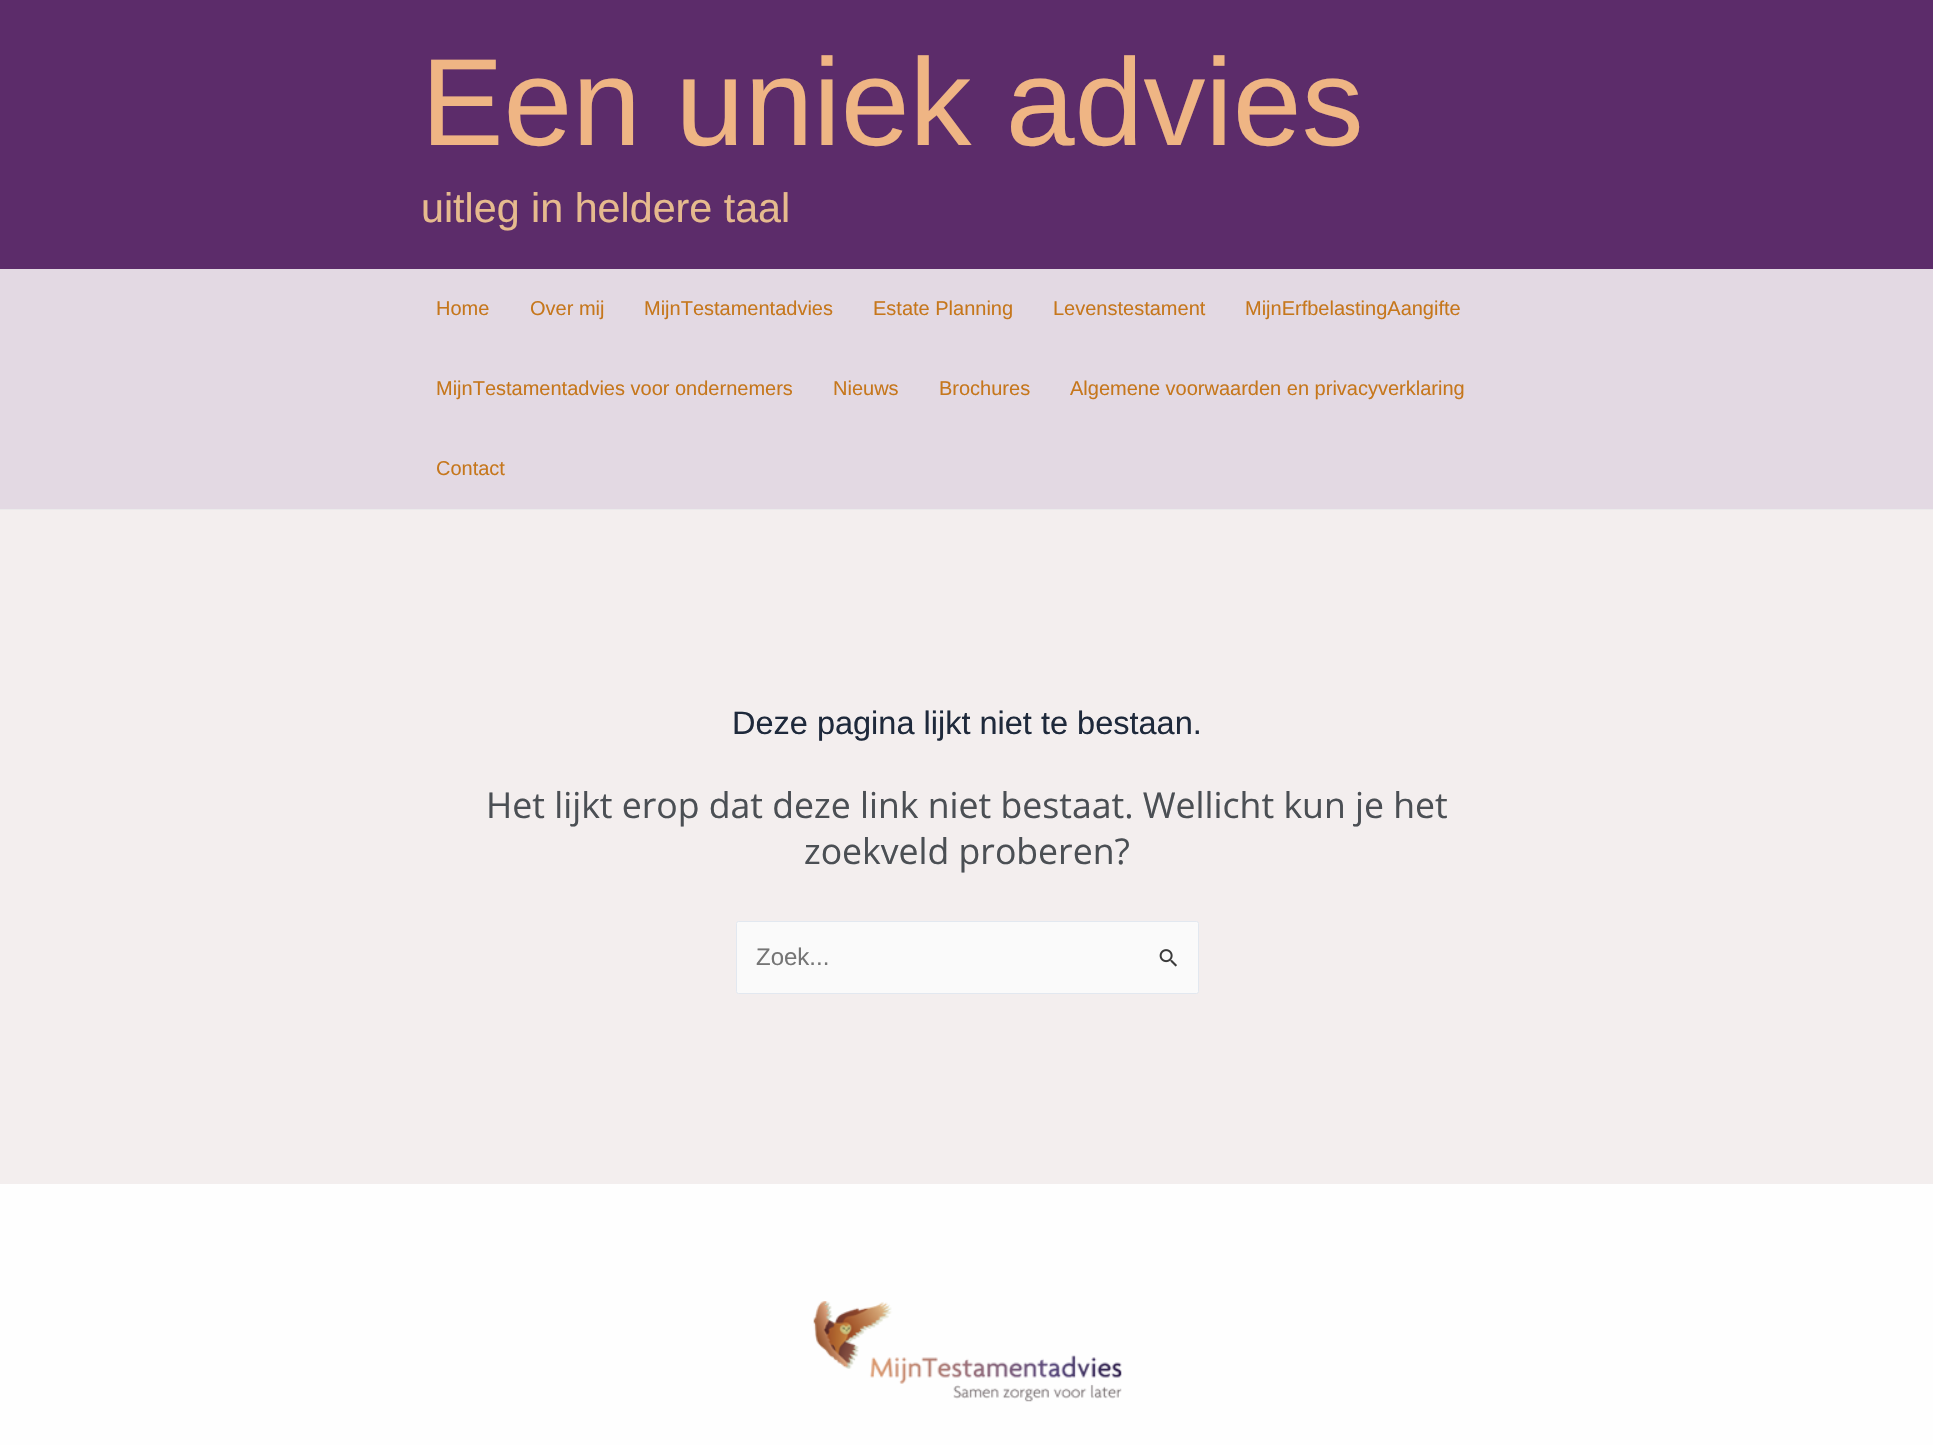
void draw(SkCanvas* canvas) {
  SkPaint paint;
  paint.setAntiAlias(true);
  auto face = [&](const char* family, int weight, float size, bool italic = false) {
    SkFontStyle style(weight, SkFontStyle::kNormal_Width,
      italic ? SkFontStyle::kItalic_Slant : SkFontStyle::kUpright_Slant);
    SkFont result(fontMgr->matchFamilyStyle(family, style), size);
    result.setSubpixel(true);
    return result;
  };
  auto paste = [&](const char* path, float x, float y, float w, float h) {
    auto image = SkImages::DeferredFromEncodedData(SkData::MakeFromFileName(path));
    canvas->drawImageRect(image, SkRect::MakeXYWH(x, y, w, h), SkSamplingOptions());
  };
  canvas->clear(0xfff3eeee);
  {
    const struct { float x, y, w, h; SkColor color; } items[] = {
      {0, 0, 1933, 269, 0xff5c2c6a},
      {0, 269, 1933, 240, 0xffe3d9e3},
      {0, 509, 1933, 1, 0xffebeaeb},
    };
    for (auto [x, y, w, h, color] : items) {
      paint.setColor(color);
      canvas->drawRect(SkRect::MakeXYWH(x, y, w, h), paint);
    }
  }
  paint.setColor(0xfffafafa);
  canvas->drawRoundRect(SkRect::MakeXYWH(736.5f, 921.5f, 462, 72), 2, 2, paint);
  paint.setStroke(true);
  paint.setStrokeWidth(1);
  paint.setColor(0xffe2e8f0);
  canvas->drawRoundRect(SkRect::MakeXYWH(736.5f, 921.5f, 462, 72), 2, 2, paint);
  paste("img/1.png", 1159, 949, 18, 18);
  paint.setStroke(false);
  paint.setColor(0xfffefefe);
  canvas->drawRect(SkRect::MakeXYWH(0, 1184, 1933, 261), paint);
  paste("img/2.png", 813, 1301, 309, 101);
  auto f0 = face("Liberation Sans", 400, 123.75f);
  paint.setColor(0xffefb584);
  canvas->drawString("Een uniek advies", 421, 145, f0, paint);
  auto f1 = face("Liberation Sans", 400, 41.25f);
  paint.setColor(0xffe6ba8e);
  canvas->drawString("uitleg in heldere taal", 421, 222, f1, paint);
  auto f2 = face("Liberation Sans", 400, 20);
  paint.setColor(0xffc6771c);
  {
    const struct { const char* s; float x, y; } items[] = {
      {"Home", 436, 315},
      {"Over mij", 530, 315},
      {"MijnTestamentadvies", 644, 315},
      {"Estate Planning", 873, 315},
      {"Levenstestament", 1053, 315},
      {"MijnErfbelastingAangifte", 1245, 315},
      {"MijnTestamentadvies voor ondernemers", 436, 395},
      {"Nieuws", 833, 395},
      {"Brochures", 939, 395},
      {"Algemene voorwaarden en privacyverklaring", 1070, 395},
      {"Contact", 436, 475},
    };
    for (auto [s, x, y] : items) {
      canvas->drawString(s, x, y, f2, paint);
    }
  }
  auto f3 = face("Liberation Sans", 400, 32.5f);
  paint.setColor(0xff1e293b);
  canvas->drawString("Deze pagina lijkt niet te bestaan.", 732, 734, f3, paint);
  auto f4 = face("Open Sans", 400, 35.6f);
  paint.setColor(0xff4b4f54);
  canvas->drawString("Het lijkt erop dat deze link niet bestaat. Wellicht kun je het", 486, 818, f4, paint);
  canvas->drawString("zoekveld proberen?", 804, 864, f4, paint);
  auto f5 = face("Liberation Sans", 400, 24);
  paint.setColor(0xff757575);
  canvas->drawString("Zoek...", 756, 965, f5, paint);
}
